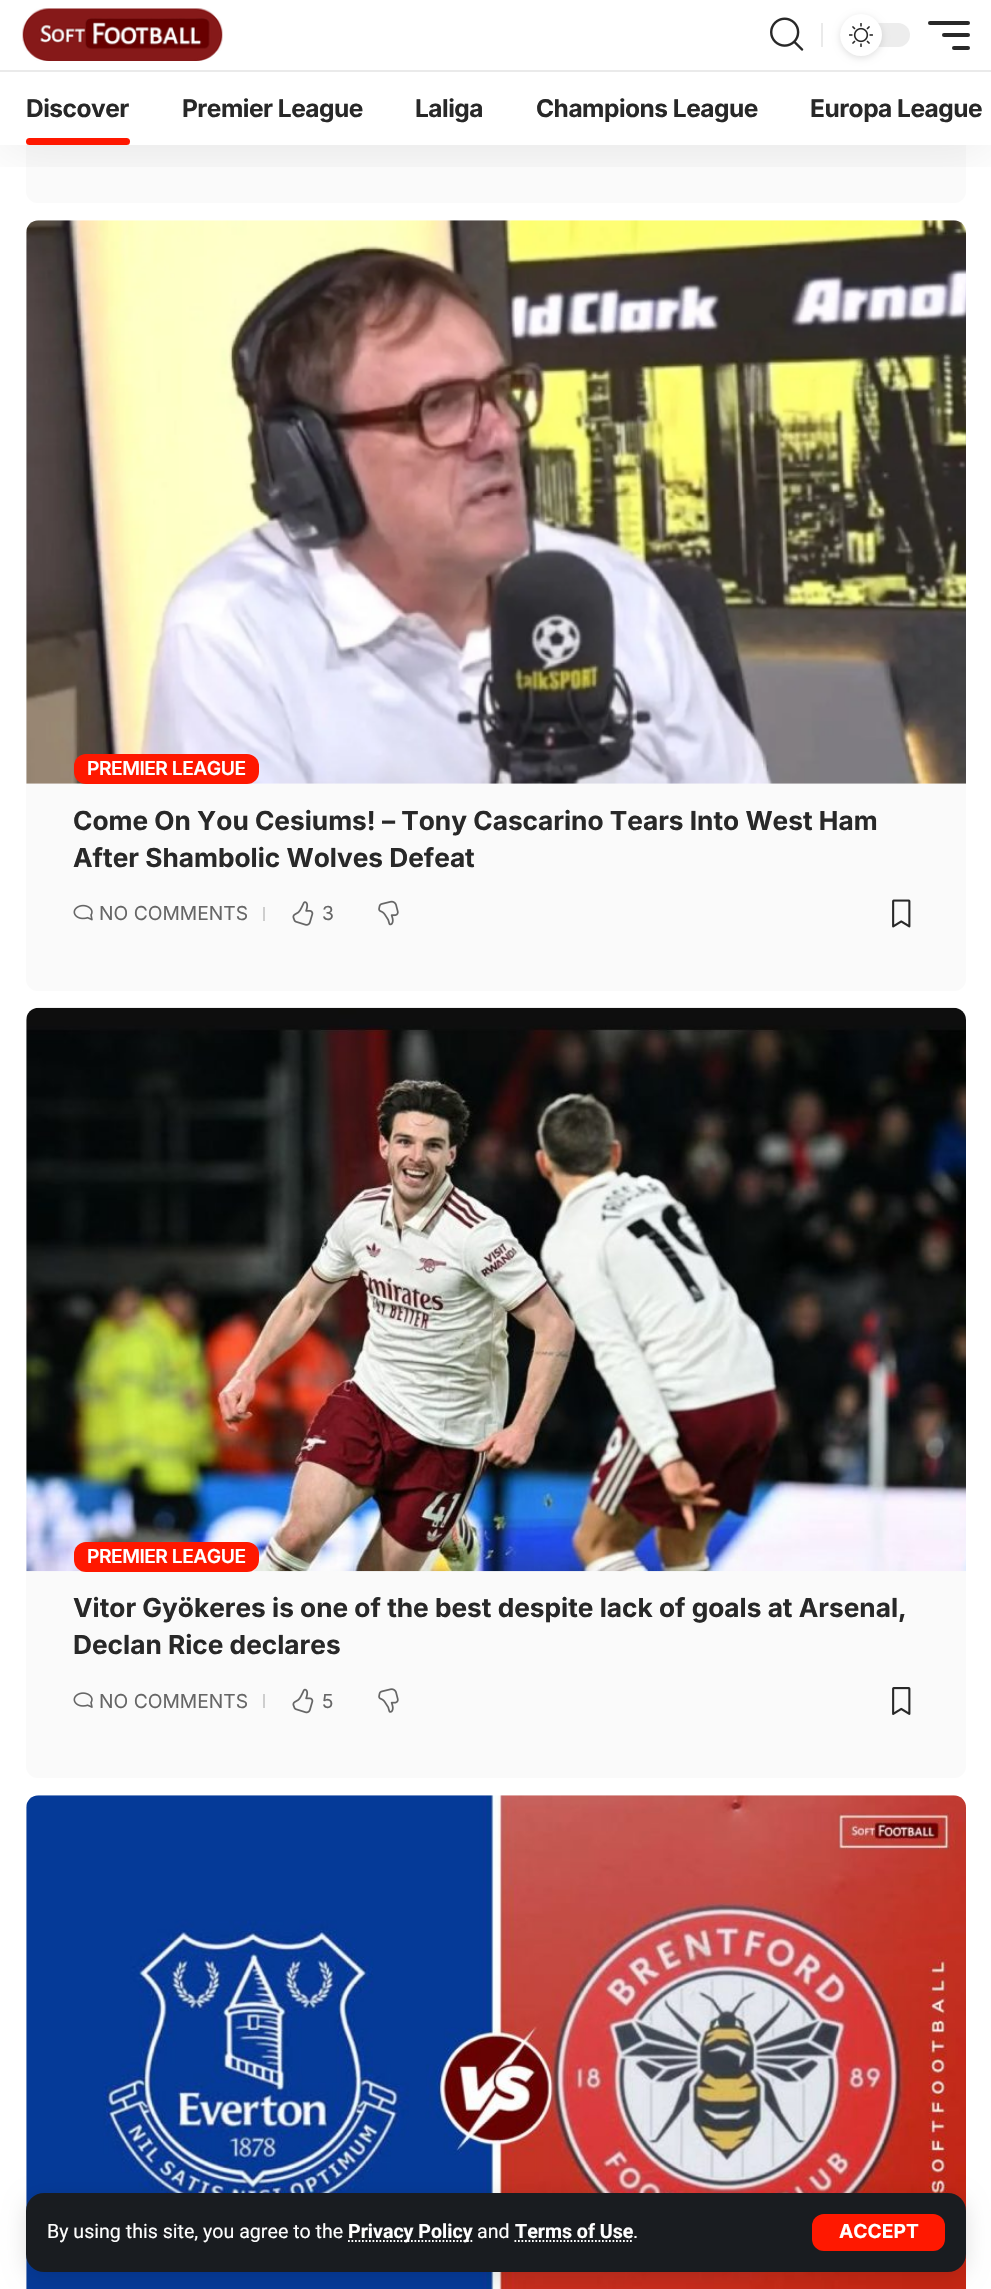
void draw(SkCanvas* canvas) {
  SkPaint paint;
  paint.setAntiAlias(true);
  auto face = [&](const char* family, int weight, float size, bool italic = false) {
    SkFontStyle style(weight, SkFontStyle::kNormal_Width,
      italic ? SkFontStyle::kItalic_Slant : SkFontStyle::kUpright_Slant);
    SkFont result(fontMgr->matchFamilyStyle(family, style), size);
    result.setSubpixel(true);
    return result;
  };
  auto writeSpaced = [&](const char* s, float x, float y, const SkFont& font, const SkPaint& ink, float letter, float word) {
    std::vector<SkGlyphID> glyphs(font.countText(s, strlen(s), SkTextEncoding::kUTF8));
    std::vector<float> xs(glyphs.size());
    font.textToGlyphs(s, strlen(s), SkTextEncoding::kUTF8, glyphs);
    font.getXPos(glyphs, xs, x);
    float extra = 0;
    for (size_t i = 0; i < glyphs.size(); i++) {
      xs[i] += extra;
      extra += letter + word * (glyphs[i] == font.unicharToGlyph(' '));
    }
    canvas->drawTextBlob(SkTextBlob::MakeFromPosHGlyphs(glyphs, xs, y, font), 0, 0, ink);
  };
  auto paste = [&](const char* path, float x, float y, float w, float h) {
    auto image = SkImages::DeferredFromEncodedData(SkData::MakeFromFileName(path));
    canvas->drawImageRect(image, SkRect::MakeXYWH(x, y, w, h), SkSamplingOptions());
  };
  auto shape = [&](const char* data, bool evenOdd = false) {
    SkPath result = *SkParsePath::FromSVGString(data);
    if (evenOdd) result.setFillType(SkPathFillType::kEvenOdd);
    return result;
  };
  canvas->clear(0xffffffff);
  paint.setColor(0xfffafafa);
  canvas->drawRoundRect(SkRect::MakeXYWH(26, -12, 940, 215), 12, 12, paint);
  paint.setColor(0xffffffff);
  canvas->drawRect(SkRect::MakeXYWH(26, 0, 940, 145), paint);
  paint.setColor(0xfffafafa);
  canvas->drawRoundRect(SkRect::MakeXYWH(26, 221, 940, 770), 12, 12, paint);
  paste("img/4.png", 26, 220, 940, 564);
  canvas->save();
  canvas->clipRect(SkRect::MakeXYWH(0, 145, 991, 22));
  paint.setColor(0x12000000);
  paint.setMaskFilter(SkMaskFilter::MakeBlur(kNormal_SkBlurStyle, 26));
  canvas->drawRect(SkRect::MakeXYWH(0, 7, 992, 145), paint);
  paint.setMaskFilter(nullptr);
  canvas->restore();
  paste("img/1.png", 22, 8, 201, 53);
  paste("img/2.png", 770, 17, 34, 34);
  paint.setColor(0xffeaeaea);
  canvas->drawRect(SkRect::MakeXYWH(821, 23, 2, 24), paint);
  paint.setColor(0xffededed);
  canvas->drawRoundRect(SkRect::MakeXYWH(840, 23, 70, 24), 12, 12, paint);
  paint.setColor(0x1f000000);
  paint.setMaskFilter(SkMaskFilter::MakeBlur(kNormal_SkBlurStyle, 3.5f));
  canvas->drawRoundRect(SkRect::MakeXYWH(840, 16, 42, 42), 21, 21, paint);
  paint.setMaskFilter(nullptr);
  paint.setColor(0xffffffff);
  canvas->drawCircle(861, 35, 21, paint);
  paste("img/3.png", 849, 23, 24, 24);
  paint.setColor(0xff282828);
  canvas->drawRoundRect(SkRect::MakeXYWH(928, 21, 42, 4), 2, 2, paint);
  canvas->drawRoundRect(SkRect::MakeXYWH(942, 33, 28, 4), 2, 2, paint);
  canvas->drawRoundRect(SkRect::MakeXYWH(952, 46, 18, 4), 2, 2, paint);
  paint.setColor(0xffeaeaea);
  canvas->drawRect(SkRect::MakeXYWH(0, 70, 991, 2), paint);
  paint.setColor(0xffff1800);
  canvas->drawRoundRect(SkRect::MakeXYWH(26, 138, 104, 7), 3.5f, 3.5f, paint);
  paint.setColor(0xfffafafa);
  canvas->drawRoundRect(SkRect::MakeXYWH(26, 1796, 940, 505), 12, 12, paint);
  paste("img/14.png", 26, 1795, 940, 494);
  paint.setColor(0x1f000000);
  paint.setMaskFilter(SkMaskFilter::MakeBlur(kNormal_SkBlurStyle, 10.5f));
  canvas->drawRoundRect(SkRect::MakeXYWH(26, 2198, 940, 79), 18, 18, paint);
  paint.setMaskFilter(nullptr);
  paint.setColor(0xff191c20);
  canvas->drawRoundRect(SkRect::MakeXYWH(26, 2193, 940, 79), 18, 18, paint);
  paint.setStroke(true);
  paint.setStrokeWidth(1.8f);
  paint.setColor(0xffffffff);
  paint.setPathEffect(SkDashPathEffect::Make({{1.75f, 1.75f}}, 0));
  canvas->drawPath(shape("M348 2241H472.5"), paint);
  paint.setPathEffect(nullptr);
  paint.setPathEffect(SkDashPathEffect::Make({{1.75f, 1.75f}}, 0));
  canvas->drawPath(shape("M514.5 2241H633"), paint);
  paint.setPathEffect(nullptr);
  paint.setStroke(false);
  paint.setColor(0xffff1800);
  canvas->drawRoundRect(SkRect::MakeXYWH(812, 2214, 133, 37), 12, 12, paint);
  canvas->drawRoundRect(SkRect::MakeXYWH(74, 754, 185, 30), 12, 12, paint);
  paste("img/5.png", 73, 904, 20, 17);
  paint.setColor(0xffcecece);
  canvas->drawRect(SkRect::MakeXYWH(263, 907, 2, 14), paint);
  paste("img/6.png", 292, 901, 22, 25);
  paste("img/7.png", 378, 900, 21, 26);
  paste("img/8.png", 892, 899, 19, 29);
  paint.setColor(0xfffafafa);
  canvas->drawRoundRect(SkRect::MakeXYWH(26, 1008, 940, 770), 12, 12, paint);
  paste("img/9.png", 26, 1007, 940, 565);
  paint.setColor(0xffff1800);
  canvas->drawRoundRect(SkRect::MakeXYWH(74, 1542, 185, 30), 12, 12, paint);
  paste("img/10.png", 73, 1692, 20, 16);
  paint.setColor(0xffcecece);
  canvas->drawRect(SkRect::MakeXYWH(263, 1694, 2, 14), paint);
  paste("img/11.png", 292, 1688, 22, 26);
  paste("img/12.png", 378, 1688, 21, 25);
  paste("img/13.png", 892, 1687, 19, 28);
  auto f0 = face("Inter", 700, 24.5f);
  paint.setColor(0xff282828);
  {
    const struct { const char* s; float x, y; } items[] = {
      {"Discover", 26, 117},
      {"Premier League", 182, 117},
      {"Laliga", 415, 117},
      {"Champions League", 536, 117},
      {"Europa League", 810, 117},
    };
    for (auto [s, x, y] : items) {
      writeSpaced(s, x, y, f0, paint, -0.5f, 0);
    }
  }
  auto f1 = face("Roboto", 400, 19.6f);
  paint.setColor(0xffffffff);
  canvas->drawString("By using this site, you agree to the", 47, 2238, f1, paint);
  auto f2 = face("Roboto", 700, 19.6f);
  canvas->drawString("Privacy Policy", 348, 2238, f2, paint);
  canvas->drawString("and", 477, 2238, f1, paint);
  canvas->drawString("Terms of Use", 515, 2238, f2, paint);
  canvas->drawString(".", 633, 2238, f1, paint);
  auto f3 = face("Inter", 700, 19.25f);
  canvas->drawString("ACCEPT", 839, 2238, f3, paint);
  auto f4 = face("Inter", 600, 19.25f);
  writeSpaced("PREMIER LEAGUE", 87, 775, f4, paint, -0.5f, 0);
  auto f5 = face("Inter", 700, 26.25f);
  paint.setColor(0xff282828);
  canvas->drawString("Come On You Cesiums! – Tony Cascarino Tears Into West Ham", 73, 830, f5, paint);
  canvas->drawString("After Shambolic Wolves Defeat", 73, 867, f5, paint);
  auto f6 = face("Inter", 400, 19.25f);
  paint.setColor(0xff666666);
  canvas->drawString("NO COMMENTS", 99, 920, f6, paint);
  canvas->drawString("3", 322, 920, f6, paint);
  paint.setColor(0xffffffff);
  writeSpaced("PREMIER LEAGUE", 87, 1563, f4, paint, -0.5f, 0);
  paint.setColor(0xff282828);
  canvas->drawString("Vitor Gyökeres is one of the best despite lack of goals at Arsenal,", 73, 1617, f5, paint);
  canvas->drawString("Declan Rice declares", 73, 1654, f5, paint);
  paint.setColor(0xff666666);
  canvas->drawString("NO COMMENTS", 99, 1708, f6, paint);
  canvas->drawString("5", 322, 1708, f6, paint);
}
